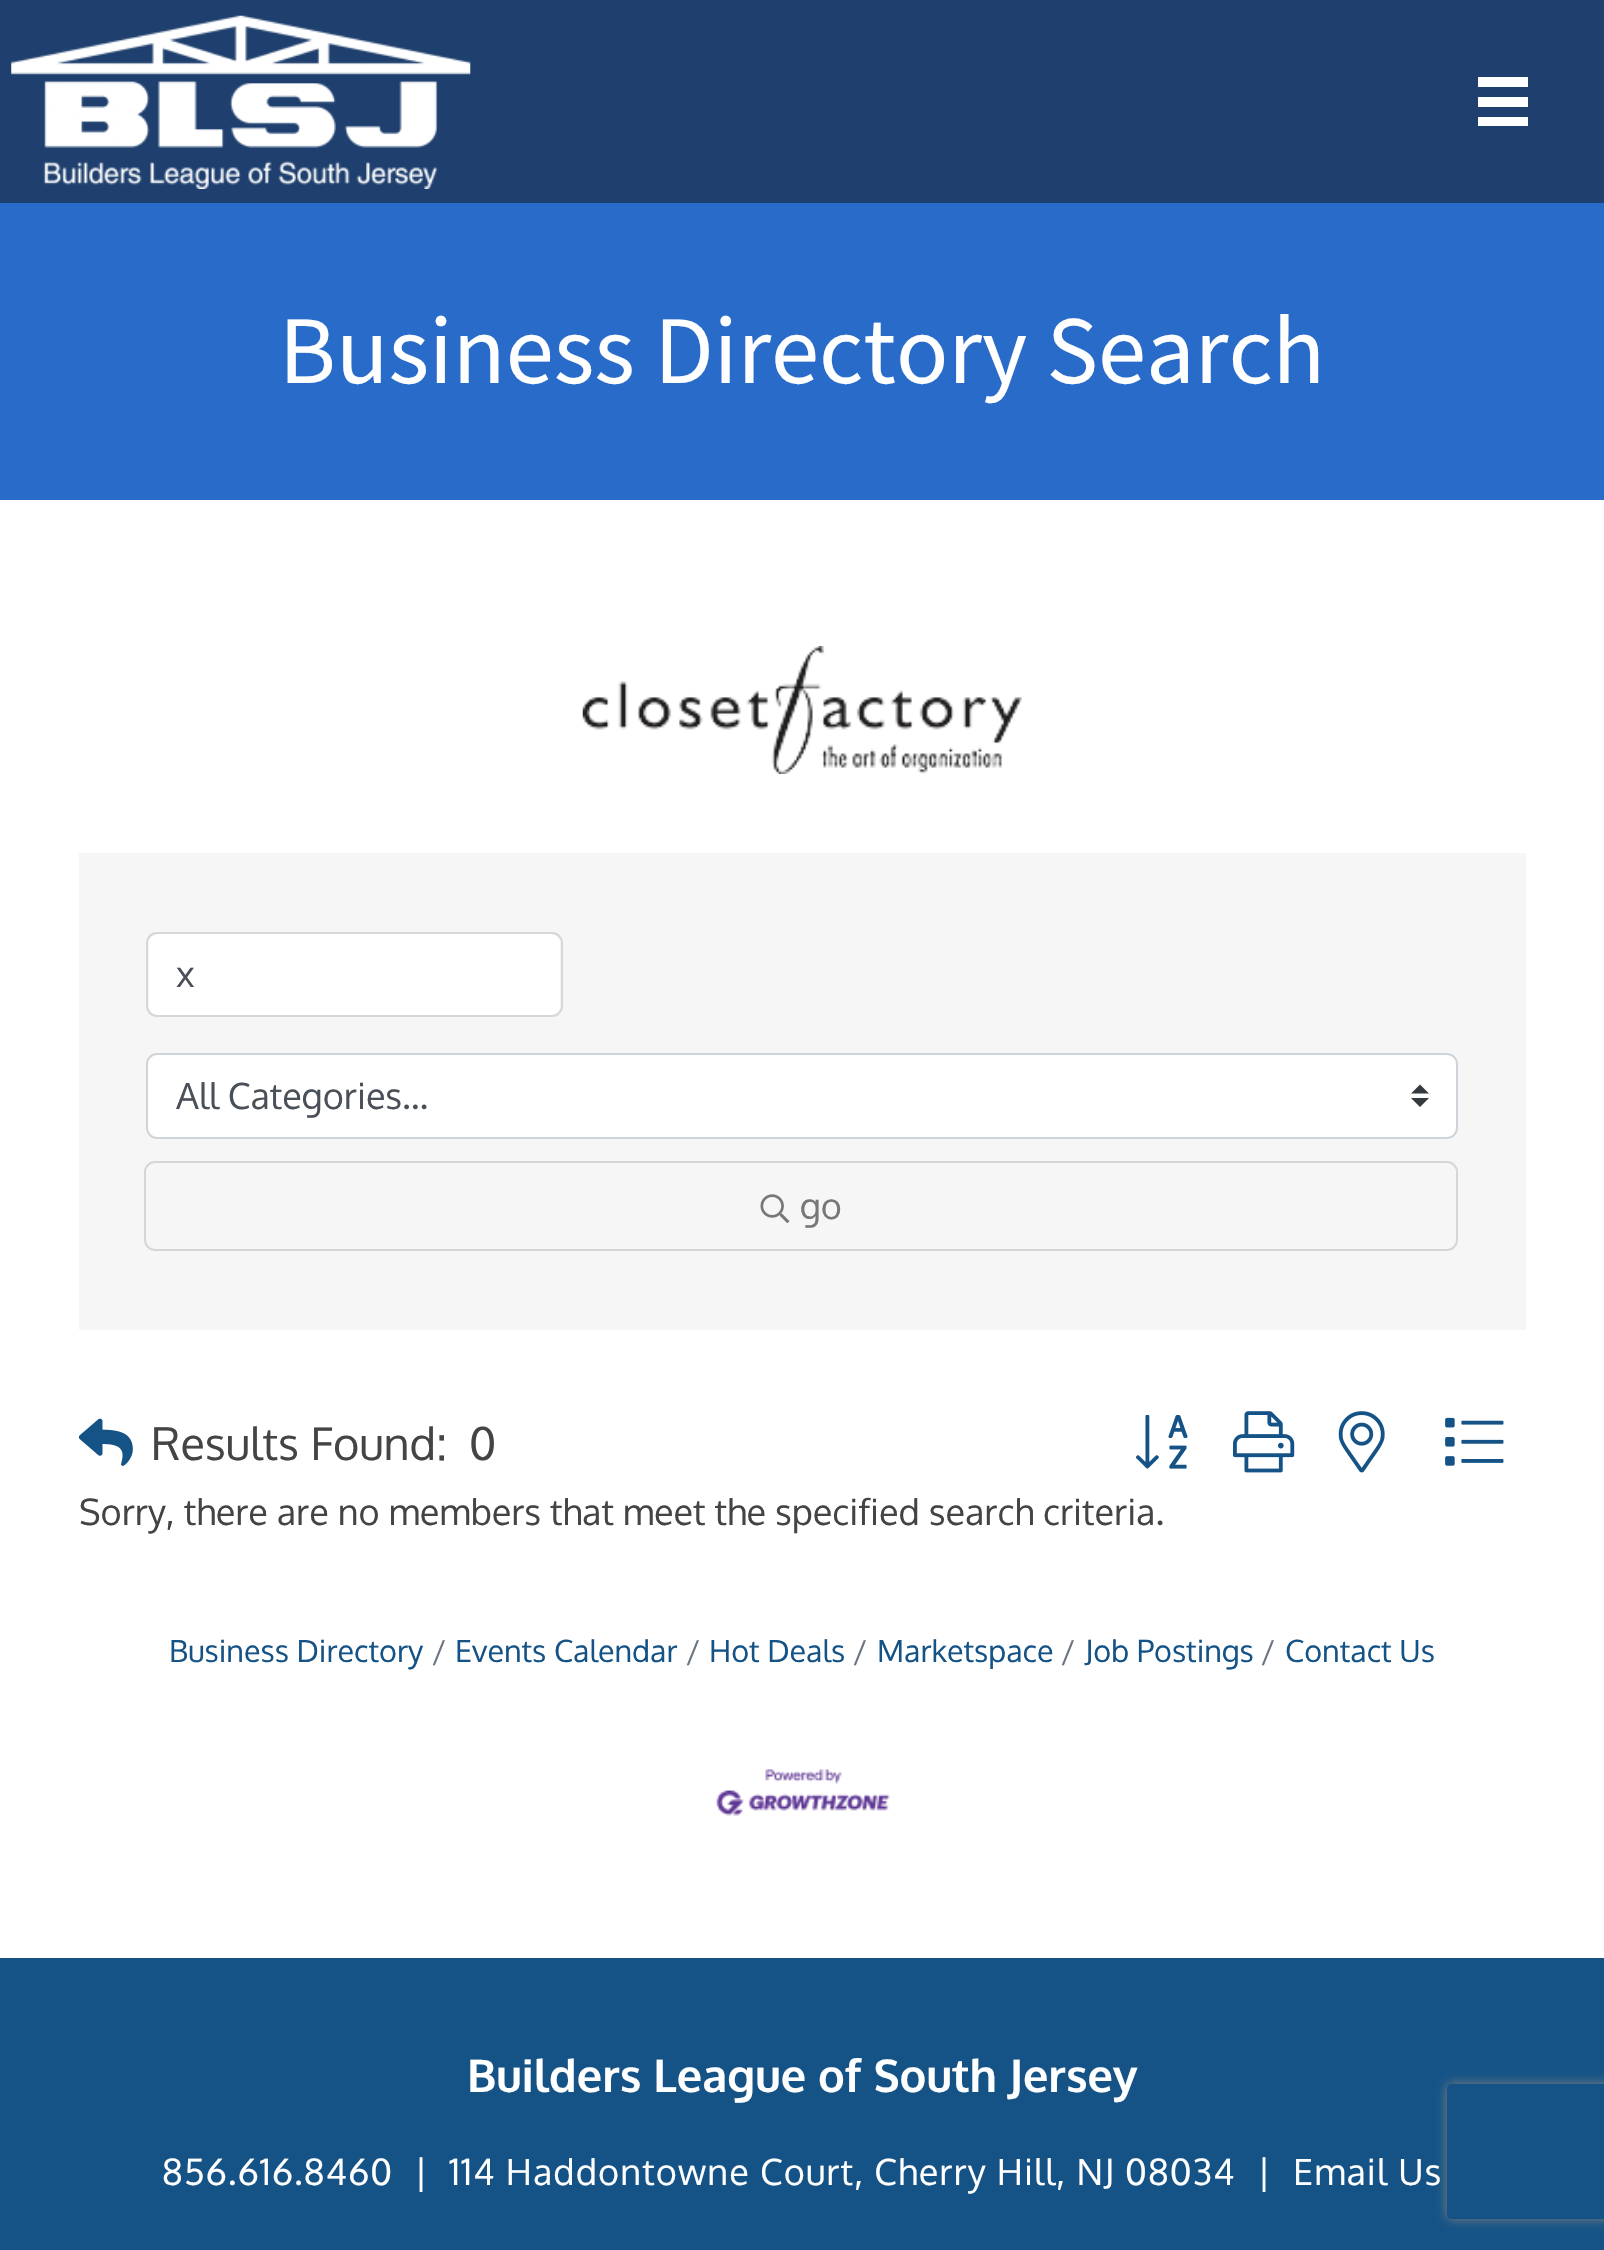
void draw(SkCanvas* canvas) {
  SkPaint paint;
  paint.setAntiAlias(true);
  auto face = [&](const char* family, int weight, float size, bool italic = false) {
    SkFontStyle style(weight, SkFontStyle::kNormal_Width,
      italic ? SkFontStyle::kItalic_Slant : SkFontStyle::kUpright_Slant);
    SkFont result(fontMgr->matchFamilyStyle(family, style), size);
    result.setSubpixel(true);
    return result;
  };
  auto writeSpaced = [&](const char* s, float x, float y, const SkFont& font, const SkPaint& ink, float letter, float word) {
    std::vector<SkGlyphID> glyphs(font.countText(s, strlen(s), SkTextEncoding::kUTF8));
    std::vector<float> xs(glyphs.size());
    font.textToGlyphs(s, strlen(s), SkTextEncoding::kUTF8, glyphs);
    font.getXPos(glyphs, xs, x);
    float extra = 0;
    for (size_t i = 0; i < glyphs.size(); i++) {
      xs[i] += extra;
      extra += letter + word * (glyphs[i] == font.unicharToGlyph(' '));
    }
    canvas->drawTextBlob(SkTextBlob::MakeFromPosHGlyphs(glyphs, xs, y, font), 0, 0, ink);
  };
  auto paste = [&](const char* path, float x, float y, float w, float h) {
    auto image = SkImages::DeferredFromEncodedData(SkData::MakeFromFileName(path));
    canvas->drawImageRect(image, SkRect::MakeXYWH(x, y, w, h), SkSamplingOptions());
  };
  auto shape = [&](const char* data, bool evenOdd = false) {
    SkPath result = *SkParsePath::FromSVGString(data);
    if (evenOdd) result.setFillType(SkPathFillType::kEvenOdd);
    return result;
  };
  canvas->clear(0xffffffff);
  paint.setColor(0xff1f406e);
  canvas->drawRect(SkRect::MakeXYWH(0, 0, 1604, 203), paint);
  paste("img/1.png", 11, 15, 460, 174);
  {
    const struct { float x, y, w, h; SkColor color; } items[] = {
      {1478, 77, 50, 10, 0xffffffff},
      {1478, 97, 50, 10, 0xffffffff},
      {1478, 117, 50, 9, 0xffffffff},
      {0, 203, 1604, 297, 0xff296bc9},
    };
    for (auto [x, y, w, h, color] : items) {
      paint.setColor(color);
      canvas->drawRect(SkRect::MakeXYWH(x, y, w, h), paint);
    }
  }
  paste("img/2.png", 582, 645, 440, 129);
  paint.setColor(0xfff6f6f6);
  canvas->drawRect(SkRect::MakeXYWH(79, 853, 1447, 477), paint);
  paint.setColor(0xffffffff);
  canvas->drawRoundRect(SkRect::MakeXYWH(149, 934, 411, 81), 9, 9, paint);
  paint.setStroke(true);
  paint.setStrokeWidth(2);
  paint.setColor(0xffd7d7d7);
  canvas->drawRoundRect(SkRect::MakeXYWH(147, 933, 415, 83), 10, 10, paint);
  paint.setStroke(false);
  paint.setColor(0xffffffff);
  canvas->drawRoundRect(SkRect::MakeXYWH(146, 1053, 1312, 86), 11, 11, paint);
  paint.setColor(0xff343a40);
  canvas->drawPath(shape("M1420 1084.5L1411 1093.5H1429ZM1420 1107L1411 1098H1429Z"), paint);
  paint.setStroke(true);
  paint.setColor(0xffced4da);
  canvas->drawRoundRect(SkRect::MakeXYWH(147, 1054, 1310, 84), 10, 10, paint);
  paint.setColor(0xffd6d6d6);
  canvas->drawRoundRect(SkRect::MakeXYWH(145, 1162, 1312, 88), 10, 10, paint);
  paste("img/3.png", 760, 1194, 30, 29);
  paste("img/4.png", 78, 1418, 55, 48);
  paste("img/5.png", 1135, 1415, 53, 54);
  paste("img/6.png", 1233, 1411, 62, 62);
  paste("img/7.png", 1338, 1411, 47, 62);
  paste("img/8.png", 1445, 1417, 59, 49);
  paste("img/9.png", 716, 1769, 174, 47);
  paint.setStroke(false);
  paint.setColor(0xff155386);
  canvas->drawRect(SkRect::MakeXYWH(0, 1958, 1604, 292), paint);
  canvas->save();
  canvas->clipPath(shape("M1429 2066H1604V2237H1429ZM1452 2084H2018C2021 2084 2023 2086 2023 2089V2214C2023 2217 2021 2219 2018 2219H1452C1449 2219 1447 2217 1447 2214V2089C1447 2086 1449 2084 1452 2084Z", true), true);
  paint.setColor(0xff808080);
  paint.setMaskFilter(SkMaskFilter::MakeBlur(kNormal_SkBlurStyle, 5.5f));
  canvas->drawRoundRect(SkRect::MakeXYWH(1447, 2084, 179, 135), 5, 5, paint);
  paint.setMaskFilter(nullptr);
  canvas->restore();
  auto f0 = face("Source Sans Pro", 400, 96.75f);
  paint.setColor(0xffffffff);
  canvas->drawString("Business Directory Search", 279, 383, f0, paint);
  auto f1 = face("Oxygen", 400, 36);
  paint.setColor(0xff495057);
  canvas->drawString("x", 176, 987, f1, paint);
  canvas->drawString("All Categories...", 176, 1109, f1, paint);
  paint.setColor(0xff777777);
  canvas->drawString("go", 800, 1219, f1, paint);
  auto f2 = face("Oxygen", 400, 45);
  paint.setColor(0xff444444);
  canvas->drawString("Results Found:", 151, 1460, f2, paint);
  canvas->drawString("0", 469, 1460, f2, paint);
  canvas->drawString("Sorry, there are no members that meet the specified search criteria.", 79, 1525, f1, paint);
  auto f3 = face("Oxygen", 400, 30.5f);
  paint.setColor(0xff155386);
  canvas->drawString("Business Directory", 169, 1662, f3, paint);
  paint.setColor(0xff6c757d);
  canvas->drawString("/", 432, 1662, f3, paint);
  paint.setColor(0xff155386);
  canvas->drawString("Events Calendar", 455, 1662, f3, paint);
  paint.setColor(0xff6c757d);
  canvas->drawString("/", 686, 1662, f3, paint);
  paint.setColor(0xff155386);
  canvas->drawString("Hot Deals", 709, 1662, f3, paint);
  paint.setColor(0xff6c757d);
  canvas->drawString("/", 853, 1662, f3, paint);
  paint.setColor(0xff155386);
  canvas->drawString("Marketspace", 877, 1662, f3, paint);
  paint.setColor(0xff6c757d);
  canvas->drawString("/", 1061, 1662, f3, paint);
  paint.setColor(0xff155386);
  canvas->drawString("Job Postings", 1085, 1662, f3, paint);
  paint.setColor(0xff6c757d);
  canvas->drawString("/", 1261, 1662, f3, paint);
  paint.setColor(0xff155386);
  canvas->drawString("Contact Us", 1285, 1662, f3, paint);
  auto f4 = face("Oxygen", 700, 45);
  paint.setColor(0xffffffff);
  canvas->drawString("Builders League of South Jersey", 467, 2092, f4, paint);
  {
    const struct { const char* s; float x, y; } items[] = {
      {"856.616.8460", 162, 2185},
      {"|", 414, 2185},
      {"114 Haddontowne Court, Cherry Hill, NJ 08034", 449, 2185},
      {"|", 1257, 2185},
      {"Email Us", 1293, 2185},
    };
    for (auto [s, x, y] : items) {
      writeSpaced(s, x, y, f1, paint, 1.1f, 0);
    }
  }
}
